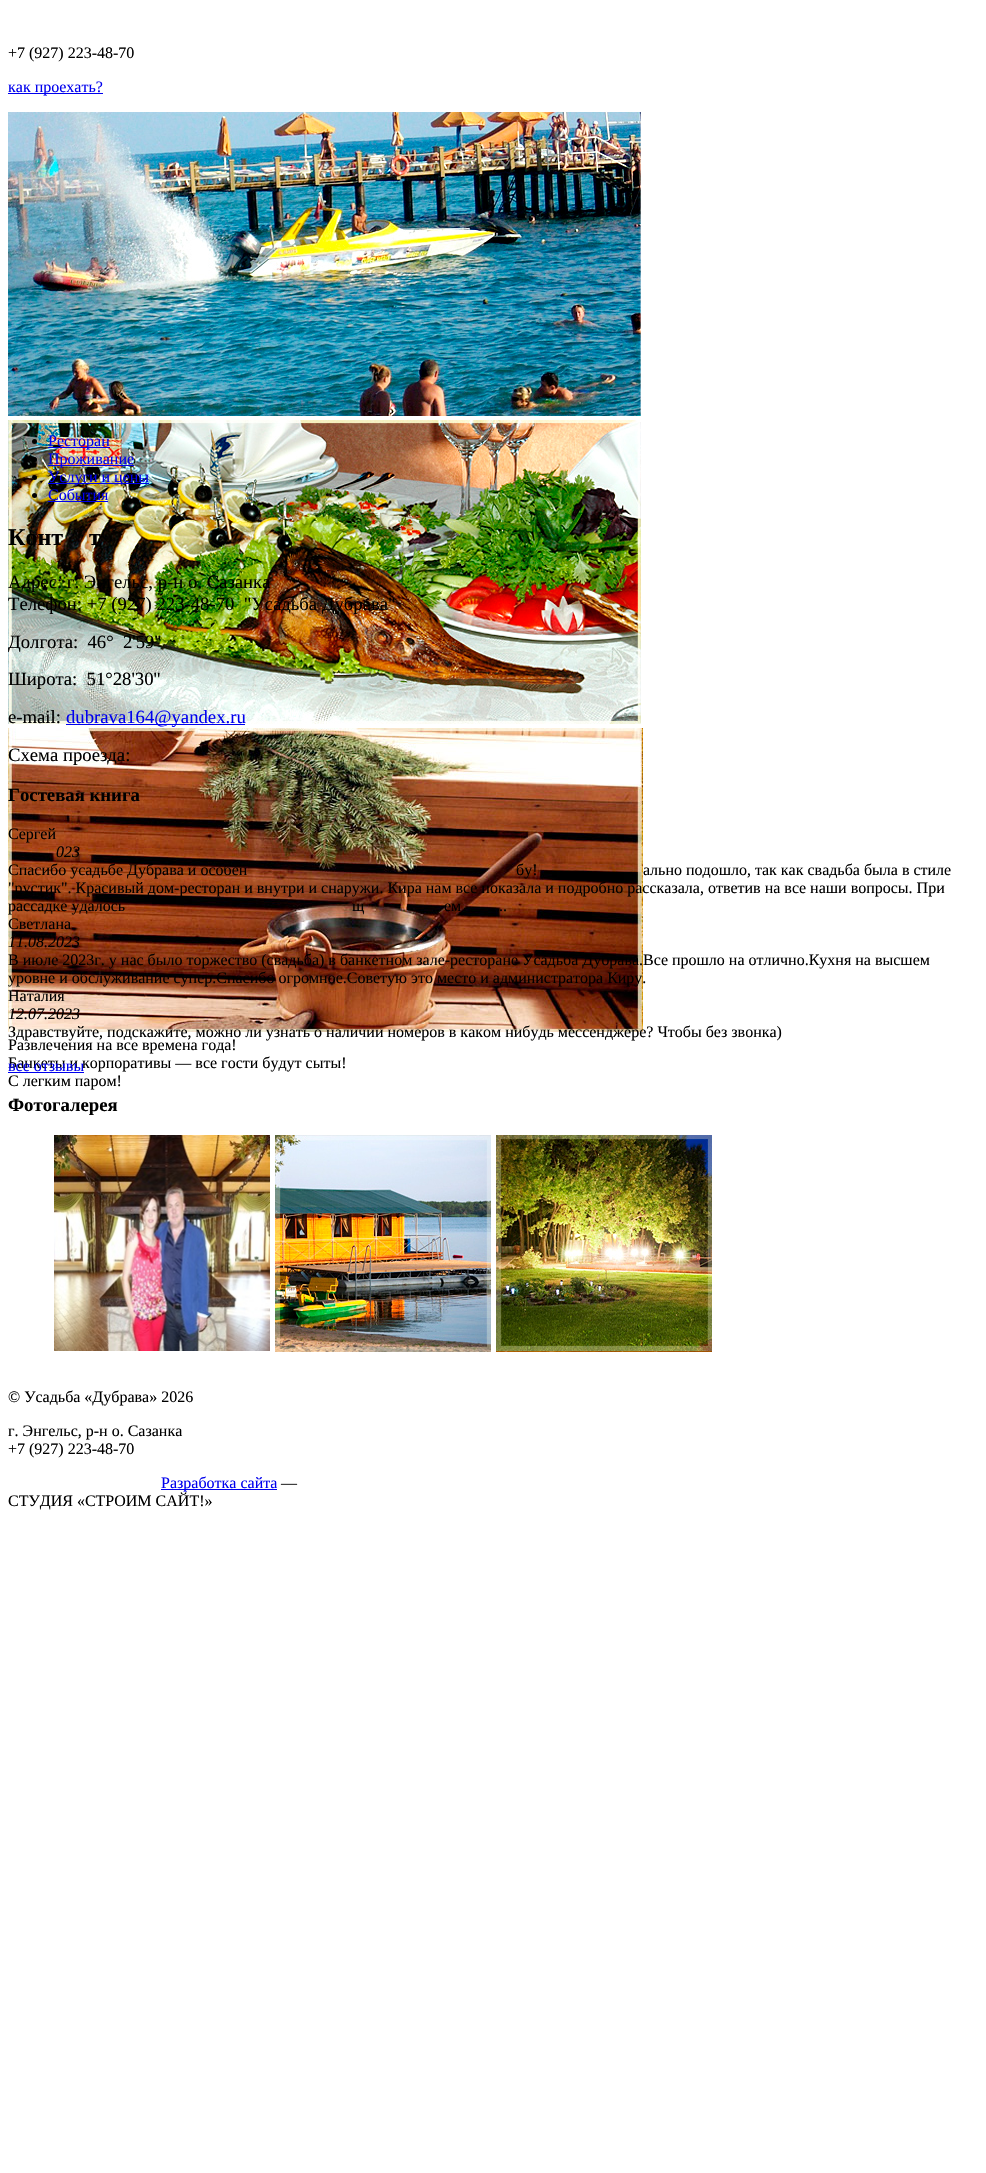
void draw(SkCanvas* canvas) {
  SkPaint paint;
  paint.setAntiAlias(true);
  auto face = [&](const char* family, int weight, float size, bool italic = false) {
    SkFontStyle style(weight, SkFontStyle::kNormal_Width,
      italic ? SkFontStyle::kItalic_Slant : SkFontStyle::kUpright_Slant);
    SkFont result(fontMgr->matchFamilyStyle(family, style), size);
    result.setSubpixel(true);
    return result;
  };
  auto paste = [&](const char* path, float x, float y, float w, float h) {
    auto image = SkImages::DeferredFromEncodedData(SkData::MakeFromFileName(path));
    canvas->drawImageRect(image, SkRect::MakeXYWH(x, y, w, h), SkSamplingOptions());
  };
  canvas->clear(0xffffffff);
  paint.setColor(0xff0000ee);
  canvas->drawRect(SkRect::MakeXYWH(8, 93, 95, 1), paint);
  paste("img/1.png", 8, 112, 633, 304);
  paste("img/2.png", 8, 420, 633, 304);
  paste("img/3.png", 8, 728, 635, 304);
  paint.setColor(0xff000000);
  canvas->drawCircle(34.5f, 441.5f, 2.5f, paint);
  paint.setColor(0xff0000ee);
  canvas->drawRect(SkRect::MakeXYWH(48, 447, 62, 1), paint);
  paint.setColor(0xff000000);
  canvas->drawCircle(34.5f, 459.5f, 2.5f, paint);
  paint.setColor(0xff0000ee);
  canvas->drawRect(SkRect::MakeXYWH(48, 465, 86, 1), paint);
  paint.setColor(0xff000000);
  canvas->drawCircle(34.5f, 477.5f, 2.5f, paint);
  paint.setColor(0xff0000ee);
  canvas->drawRect(SkRect::MakeXYWH(48, 483, 101, 1), paint);
  paint.setColor(0xff000000);
  canvas->drawCircle(34.5f, 495.5f, 2.5f, paint);
  {
    const struct { float x, y, w, h; SkColor color; } items[] = {
      {48, 501, 60, 1, 0xff0000ee},
      {66, 724, 179, 1, 0xff0000ee},
      {8, 1072, 76, 1, 0xff0000ee},
    };
    for (auto [x, y, w, h, color] : items) {
      paint.setColor(color);
      canvas->drawRect(SkRect::MakeXYWH(x, y, w, h), paint);
    }
  }
  paste("img/4.png", 54, 1135, 216, 216);
  paste("img/5.png", 275, 1135, 216, 217);
  paste("img/6.png", 496, 1135, 216, 217);
  canvas->drawRect(SkRect::MakeXYWH(161, 1489, 116, 1), paint);
  auto f0 = face("Liberation Serif", 400, 16);
  paint.setColor(0xff000000);
  canvas->drawString("+7 (927) 223-48-70", 8, 58, f0, paint);
  paint.setColor(0xff0000ee);
  canvas->drawString("как проехать?", 8, 92, f0, paint);
  paint.setColor(0xff000000);
  {
    const struct { const char* s; float x, y; } items[] = {
      {"Развлечения на все времена года!", 8, 1050},
      {"Банкеты и корпоративы — все гости будут сыты!", 8, 1068},
      {"С легким паром!", 8, 1086},
    };
    for (auto [s, x, y] : items) {
      canvas->drawString(s, x, y, f0, paint);
    }
  }
  paint.setColor(0xff0000ee);
  {
    const struct { const char* s; float x, y; } items[] = {
      {"Ресторан", 48, 446},
      {"Проживание", 48, 464},
      {"Услуги и цены", 48, 482},
      {"События", 48, 500},
    };
    for (auto [s, x, y] : items) {
      canvas->drawString(s, x, y, f0, paint);
    }
  }
  auto f1 = face("Liberation Serif", 700, 24);
  paint.setColor(0xff000000);
  canvas->drawString("Конт", 8, 545, f1, paint);
  canvas->drawString("т", 89, 545, f1, paint);
  auto f2 = face("Liberation Serif", 400, 18.7f);
  {
    const struct { const char* s; float x, y; } items[] = {
      {"Адрес: г. Энгельс, р-н о. Сазанка", 8, 588},
      {"Телефон: +7 (927) 223-48-70  \"Усадьба Дубрава\"", 8, 610},
      {"Долгота:  46°  2'59''", 8, 648},
      {"Широта:  51°28'30''", 8, 685},
      {"e-mail:", 8, 723},
    };
    for (auto [s, x, y] : items) {
      canvas->drawString(s, x, y, f2, paint);
    }
  }
  paint.setColor(0xff0000ee);
  canvas->drawString("dubrava164@yandex.ru", 66, 723, f2, paint);
  paint.setColor(0xff000000);
  canvas->drawString("Схема проезда:", 8, 761, f2, paint);
  auto f3 = face("Liberation Serif", 700, 18.75f);
  canvas->drawString("Гостевая книга", 8, 801, f3, paint);
  canvas->drawString("Сергей", 8, 839, f0, paint);
  auto f4 = face("Liberation Serif", 400, 16, true);
  canvas->drawString("023", 56, 857, f4, paint);
  {
    const struct { const char* s; float x, y; } items[] = {
      {"Спасибо усадьбе Дубрава и особен", 8, 875},
      {"бу!", 516, 875},
      {"ально подошло, так как свадьба была в стиле", 643, 875},
      {"\"рустик\". Красивый дом-ресторан и внутри и снаружи. Кира нам все показала и подробно рассказала, ответив на все наши вопросы. При", 8, 893},
      {"рассадке удалось", 8, 911},
      {"щ", 352, 911},
      {"ем", 444, 911},
      {"..", 499, 911},
      {"Светлана", 8, 929},
    };
    for (auto [s, x, y] : items) {
      canvas->drawString(s, x, y, f0, paint);
    }
  }
  canvas->drawString("11.08.2023", 8, 947, f4, paint);
  {
    const struct { const char* s; float x, y; } items[] = {
      {"В июле 2023г. у нас было торжество (свадьба) в банкетном зале-ресторане Усадьба Дубрава.Все прошло на отлично.Кухня на высшем", 8, 965},
      {"уровне и обслуживание супер.Спасибо огромное.Советую это место и администратора Киру.", 8, 983},
      {"Наталия", 8, 1001},
    };
    for (auto [s, x, y] : items) {
      canvas->drawString(s, x, y, f0, paint);
    }
  }
  canvas->drawString("12.07.2023", 8, 1019, f4, paint);
  canvas->drawString("Здравствуйте, подскажите, можно ли узнать о наличии номеров в каком нибудь мессенджере? Чтобы без звонка)", 8, 1037, f0, paint);
  paint.setColor(0xff0000ee);
  canvas->drawString("все отзывы", 8, 1071, f0, paint);
  paint.setColor(0xff000000);
  canvas->drawString("Фотогалерея", 8, 1111, f3, paint);
  {
    const struct { const char* s; float x, y; } items[] = {
      {"© Усадьба «Дубрава» 2026", 8, 1402},
      {"г. Энгельс, р-н о. Сазанка", 8, 1436},
      {"+7 (927) 223-48-70", 8, 1454},
    };
    for (auto [s, x, y] : items) {
      canvas->drawString(s, x, y, f0, paint);
    }
  }
  paint.setColor(0xff0000ee);
  canvas->drawString("Разработка сайта", 161, 1488, f0, paint);
  paint.setColor(0xff000000);
  canvas->drawString("—", 281, 1488, f0, paint);
  canvas->drawString("СТУДИЯ «СТРОИМ САЙТ!»", 8, 1506, f0, paint);
}
